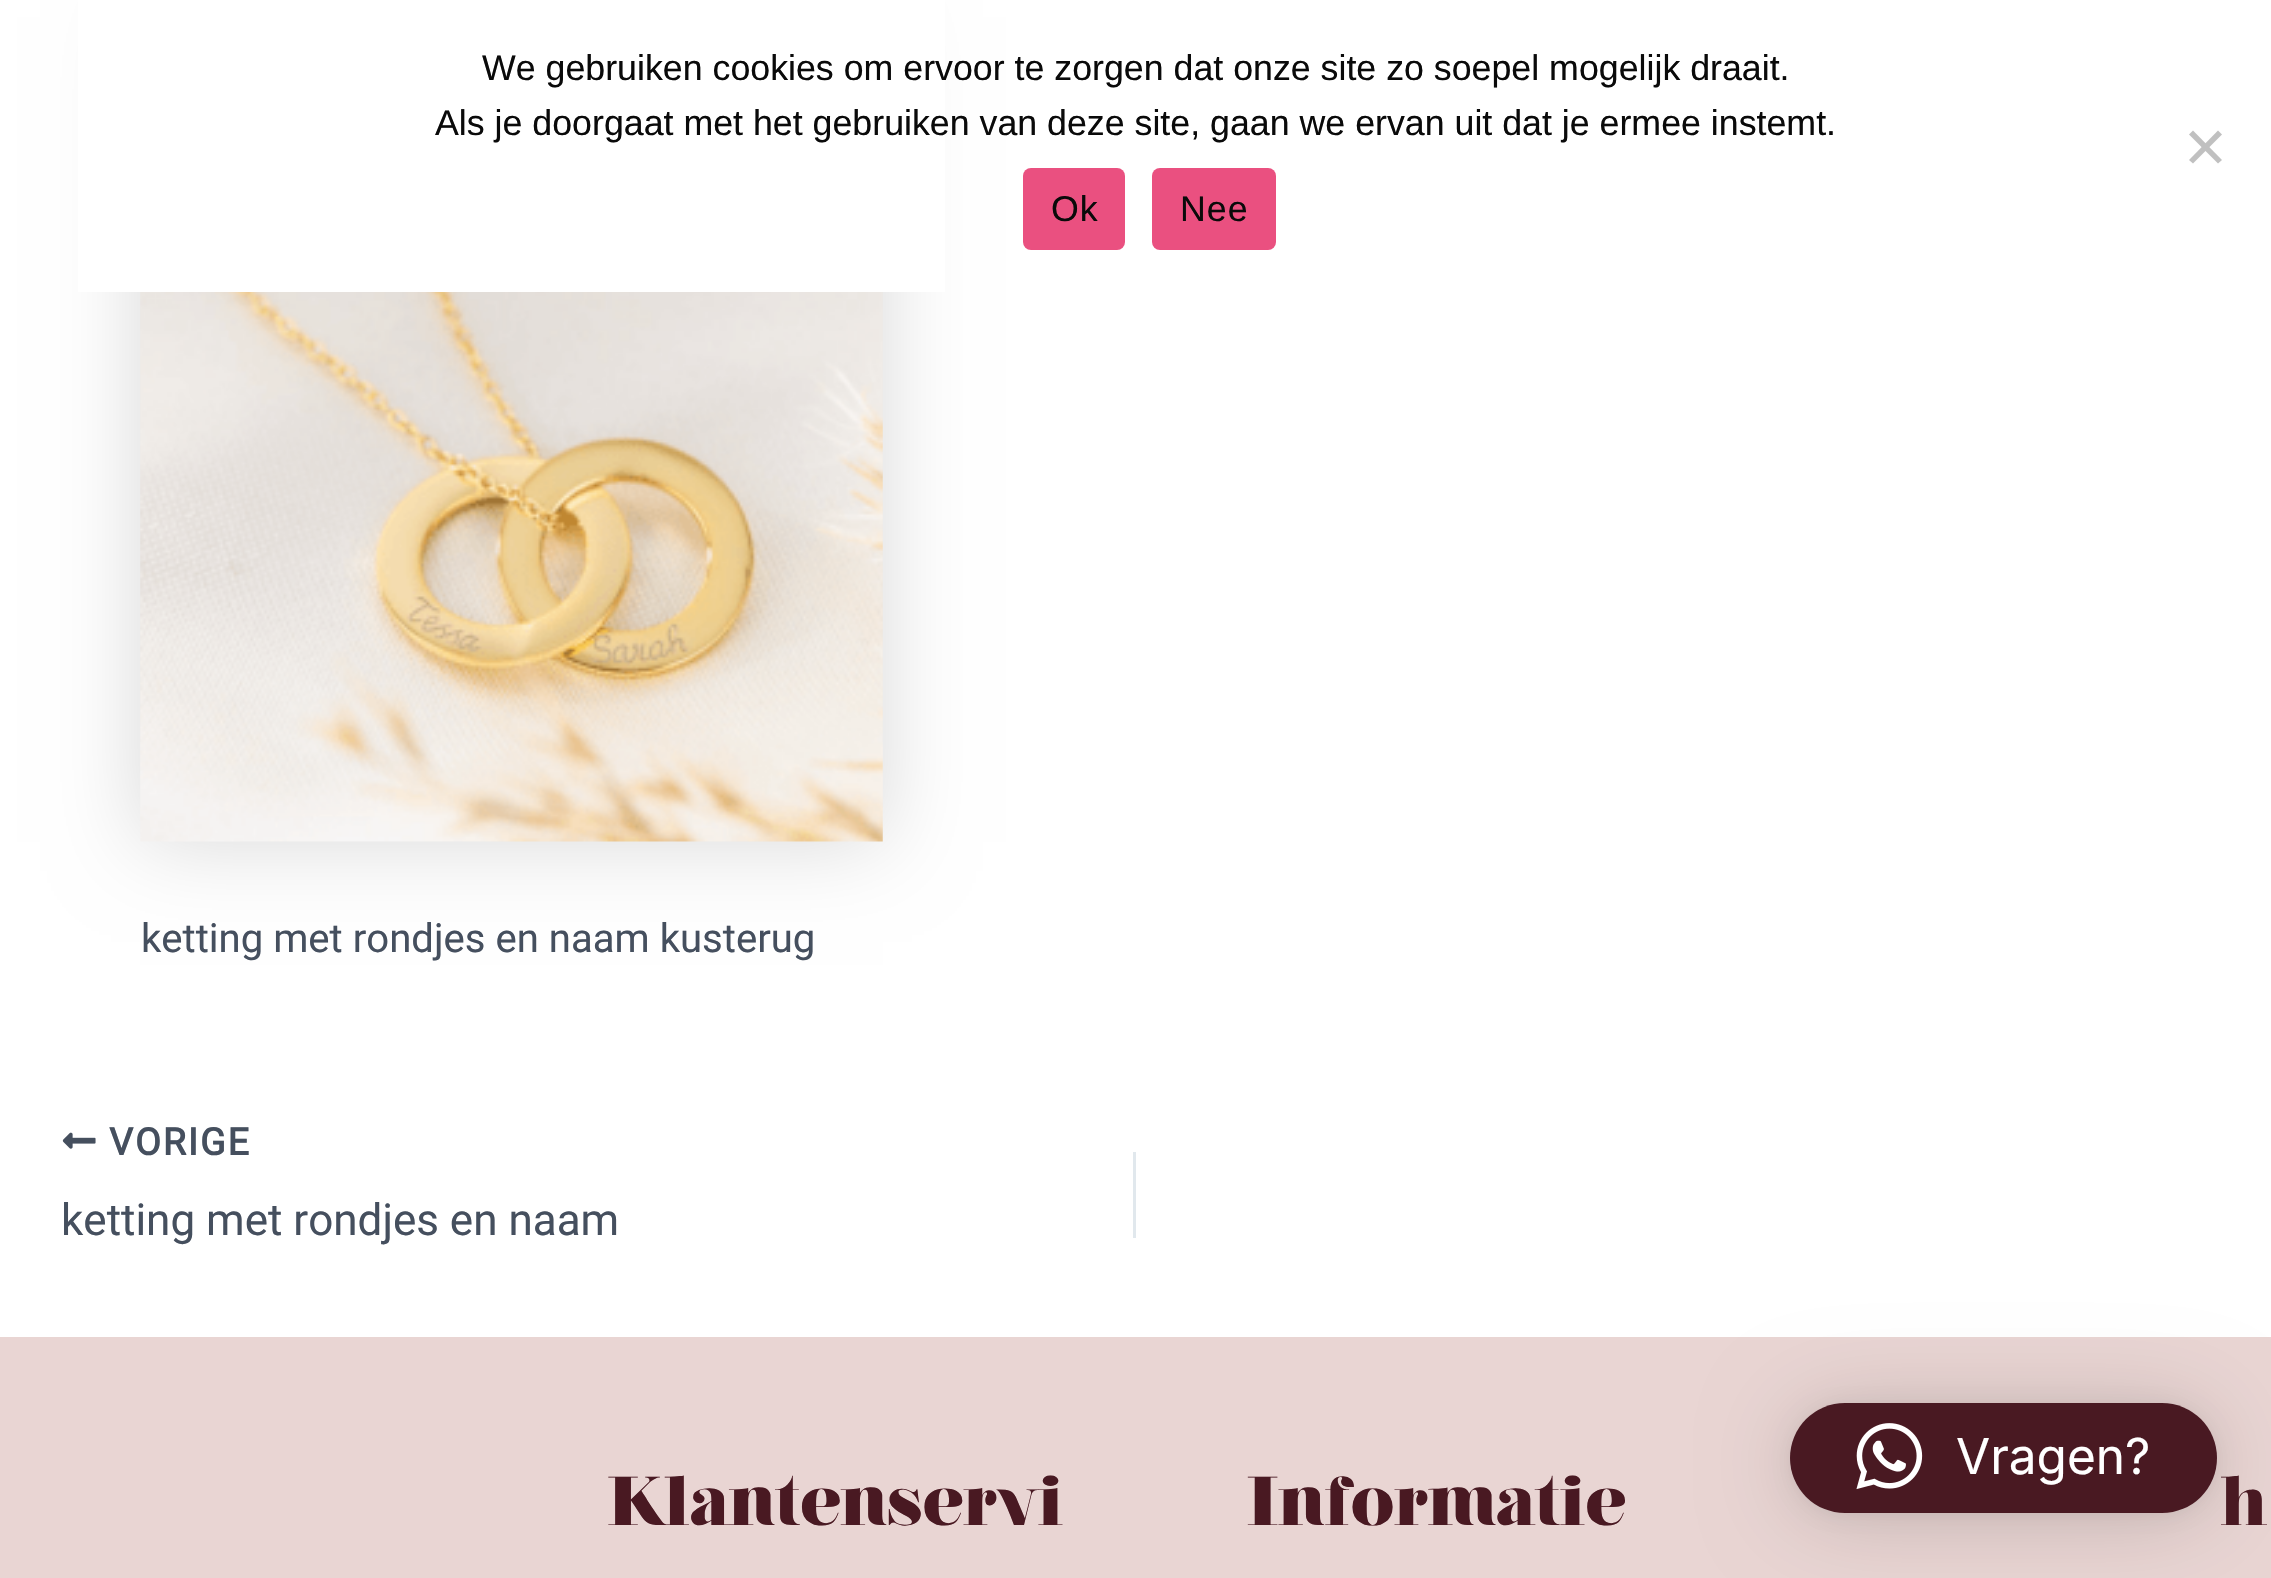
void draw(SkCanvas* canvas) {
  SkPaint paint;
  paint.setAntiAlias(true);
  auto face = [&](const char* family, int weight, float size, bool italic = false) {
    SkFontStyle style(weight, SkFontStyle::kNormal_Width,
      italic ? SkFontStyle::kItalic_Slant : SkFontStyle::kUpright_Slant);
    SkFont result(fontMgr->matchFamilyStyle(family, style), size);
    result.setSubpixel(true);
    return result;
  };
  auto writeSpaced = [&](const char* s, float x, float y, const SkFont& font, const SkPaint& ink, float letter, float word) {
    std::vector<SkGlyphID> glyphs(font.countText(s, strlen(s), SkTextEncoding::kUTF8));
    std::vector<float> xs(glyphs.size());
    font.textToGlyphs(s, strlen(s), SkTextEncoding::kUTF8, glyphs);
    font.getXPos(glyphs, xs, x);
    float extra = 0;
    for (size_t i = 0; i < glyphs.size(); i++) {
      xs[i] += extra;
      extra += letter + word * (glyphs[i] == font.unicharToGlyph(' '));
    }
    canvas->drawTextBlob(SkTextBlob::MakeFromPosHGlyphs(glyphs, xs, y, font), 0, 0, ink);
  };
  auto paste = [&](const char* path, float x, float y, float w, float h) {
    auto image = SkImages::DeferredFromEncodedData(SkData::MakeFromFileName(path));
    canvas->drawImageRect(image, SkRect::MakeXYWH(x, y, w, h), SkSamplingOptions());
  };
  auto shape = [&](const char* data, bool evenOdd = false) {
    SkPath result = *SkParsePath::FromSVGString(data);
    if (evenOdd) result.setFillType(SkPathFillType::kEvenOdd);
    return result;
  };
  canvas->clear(0xffffffff);
  paint.setColor(0x26000000);
  paint.setMaskFilter(SkMaskFilter::MakeBlur(kNormal_SkBlurStyle, 41));
  canvas->drawRect(SkRect::MakeXYWH(140, 17, 743, 825), paint);
  paint.setMaskFilter(nullptr);
  paint.setColor(0xffffffff);
  canvas->drawRect(SkRect::MakeXYWH(78, 0, 867, 292), paint);
  paint.setColor(0xffc0c0c0);
  canvas->drawPath(shape("M2218 130.5L2222 134.5L2193 163.5L2189 160Z"), paint);
  canvas->drawPath(shape("M2189 134.5L2193 130.5L2222 160L2218 163.5Z"), paint);
  paint.setColor(0xffea5080);
  canvas->drawRoundRect(SkRect::MakeXYWH(1023, 168, 102, 82), 8, 8, paint);
  canvas->drawRoundRect(SkRect::MakeXYWH(1152, 168, 124, 82), 8, 8, paint);
  paste("img/1.png", 140, 292, 743, 550);
  paste("img/2.png", 62, 1132, 34, 17);
  paint.setColor(0xffe1e8ed);
  canvas->drawRect(SkRect::MakeXYWH(1133, 1152, 3, 86), paint);
  paint.setColor(0xffe9d5d3);
  canvas->drawRect(SkRect::MakeXYWH(0, 1337, 2271, 241), paint);
  paint.setColor(0x29000000);
  paint.setMaskFilter(SkMaskFilter::MakeBlur(kNormal_SkBlurStyle, 44));
  canvas->drawRoundRect(SkRect::MakeXYWH(1790, 1408, 427, 110), 55, 55, paint);
  paint.setMaskFilter(nullptr);
  paint.setColor(0x0f000000);
  paint.setMaskFilter(SkMaskFilter::MakeBlur(kNormal_SkBlurStyle, 8));
  canvas->drawRoundRect(SkRect::MakeXYWH(1790, 1405, 427, 110), 55, 55, paint);
  paint.setMaskFilter(nullptr);
  paint.setColor(0xff491922);
  canvas->drawRoundRect(SkRect::MakeXYWH(1790, 1403, 427, 110), 55, 55, paint);
  paste("img/3.png", 1856, 1423, 67, 67);
  auto f0 = face("Liberation Sans", 400, 35.75f);
  paint.setColor(0xff0a0a0a);
  canvas->drawString("We gebruiken cookies om ervoor te zorgen dat onze site zo soepel mogelijk draait.", 482, 80, f0, paint);
  canvas->drawString("Als je doorgaat met het gebruiken van deze site, gaan we ervan uit dat je ermee instemt.", 435, 135, f0, paint);
  writeSpaced("Ok", 1051, 221, f0, paint, 1, 0);
  writeSpaced("Nee", 1180, 221, f0, paint, 1, 0);
  auto f1 = face("Roboto", 400, 40.1f);
  paint.setColor(0xff454f5e);
  canvas->drawString("ketting met rondjes en naam kusterug", 141, 952, f1, paint);
  auto f2 = face("Roboto", 700, 37.5f);
  writeSpaced("VORIGE", 109, 1155, f2, paint, 2, 0);
  auto f3 = face("Roboto", 400, 44);
  canvas->drawString("ketting met rondjes en naam", 61, 1235, f3, paint);
  auto f4 = face("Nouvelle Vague", 900, 68.75f);
  paint.setColor(0xff491922);
  {
    const struct { const char* s; float x, y; } items[] = {
      {"Klantenservi", 607, 1525},
      {"Informatie", 1247, 1525},
      {"h", 2221, 1525},
    };
    for (auto [s, x, y] : items) {
      canvas->drawString(s, x, y, f4, paint);
    }
  }
  auto f5 = face("Inter", 400, 49.5f);
  paint.setColor(0xffffffff);
  canvas->drawString("Vragen?", 1956, 1474, f5, paint);
}
